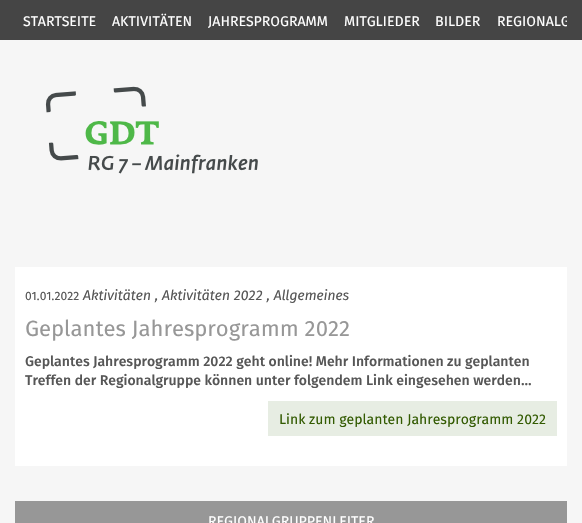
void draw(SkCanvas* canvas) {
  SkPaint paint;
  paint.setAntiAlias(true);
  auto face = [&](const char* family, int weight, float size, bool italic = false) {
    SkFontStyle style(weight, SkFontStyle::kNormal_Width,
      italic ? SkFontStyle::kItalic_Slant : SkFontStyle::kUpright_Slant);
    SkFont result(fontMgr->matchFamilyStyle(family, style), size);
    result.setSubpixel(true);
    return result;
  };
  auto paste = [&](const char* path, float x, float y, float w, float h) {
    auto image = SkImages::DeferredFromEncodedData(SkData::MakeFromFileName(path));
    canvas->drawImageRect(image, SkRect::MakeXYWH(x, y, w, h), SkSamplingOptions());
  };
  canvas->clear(0xfff6f6f6);
  paint.setColor(0xff454545);
  canvas->drawRect(SkRect::MakeXYWH(0, 0, 582, 40), paint);
  paste("img/1.png", 45, 86, 213, 88);
  {
    const struct { float x, y, w, h; SkColor color; } items[] = {
      {15, 267, 552, 199, 0xffffffff},
      {268, 401, 289, 35, 0xffe7ede3},
      {15, 501, 552, 22, 0xff979797},
    };
    for (auto [x, y, w, h, color] : items) {
      paint.setColor(color);
      canvas->drawRect(SkRect::MakeXYWH(x, y, w, h), paint);
    }
  }
  auto f0 = face("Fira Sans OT", 400, 14);
  paint.setColor(0xffffffff);
  {
    const struct { const char* s; float x, y; } items[] = {
      {"STARTSEITE", 23, 26},
      {"AKTIVITÄTEN", 112, 26},
      {"JAHRESPROGRAMM", 208, 26},
      {"MITGLIEDER", 344, 26},
      {"BILDER", 435, 26},
    };
    for (auto [s, x, y] : items) {
      canvas->drawString(s, x, y, f0, paint);
    }
  }
  canvas->save();
  canvas->clipRect(SkRect::MakeXYWH(15, 0, 552, 40));
  canvas->drawString("REGIONALG", 497, 26, f0, paint);
  canvas->restore();
  auto f1 = face("Fira Sans OT", 400, 12);
  paint.setColor(0xff565656);
  canvas->drawString("01.01.2022", 25, 300, f1, paint);
  auto f2 = face("Fira Sans OT", 400, 14, true);
  canvas->drawString("Aktivitäten , Aktivitäten 2022 , Allgemeines", 83, 300, f2, paint);
  auto f3 = face("Fira Sans OT", 400, 22);
  paint.setColor(0xff979797);
  canvas->drawString("Geplantes Jahresprogramm 2022", 25, 336, f3, paint);
  auto f4 = face("Fira Sans OT", 500, 14);
  paint.setColor(0xff565656);
  canvas->drawString("Geplantes Jahresprogramm 2022 geht online! Mehr Informationen zu geplanten", 25, 366, f4, paint);
  canvas->drawString("Treffen der Regionalgruppe können unter folgendem Link eingesehen werden...", 25, 385, f4, paint);
  paint.setColor(0xff335b02);
  canvas->drawString("Link zum geplanten Jahresprogramm 2022", 279, 424, f0, paint);
  paint.setColor(0xffffffff);
  canvas->drawString("REGIONALGRUPPENLEITER", 208, 526, f0, paint);
}
